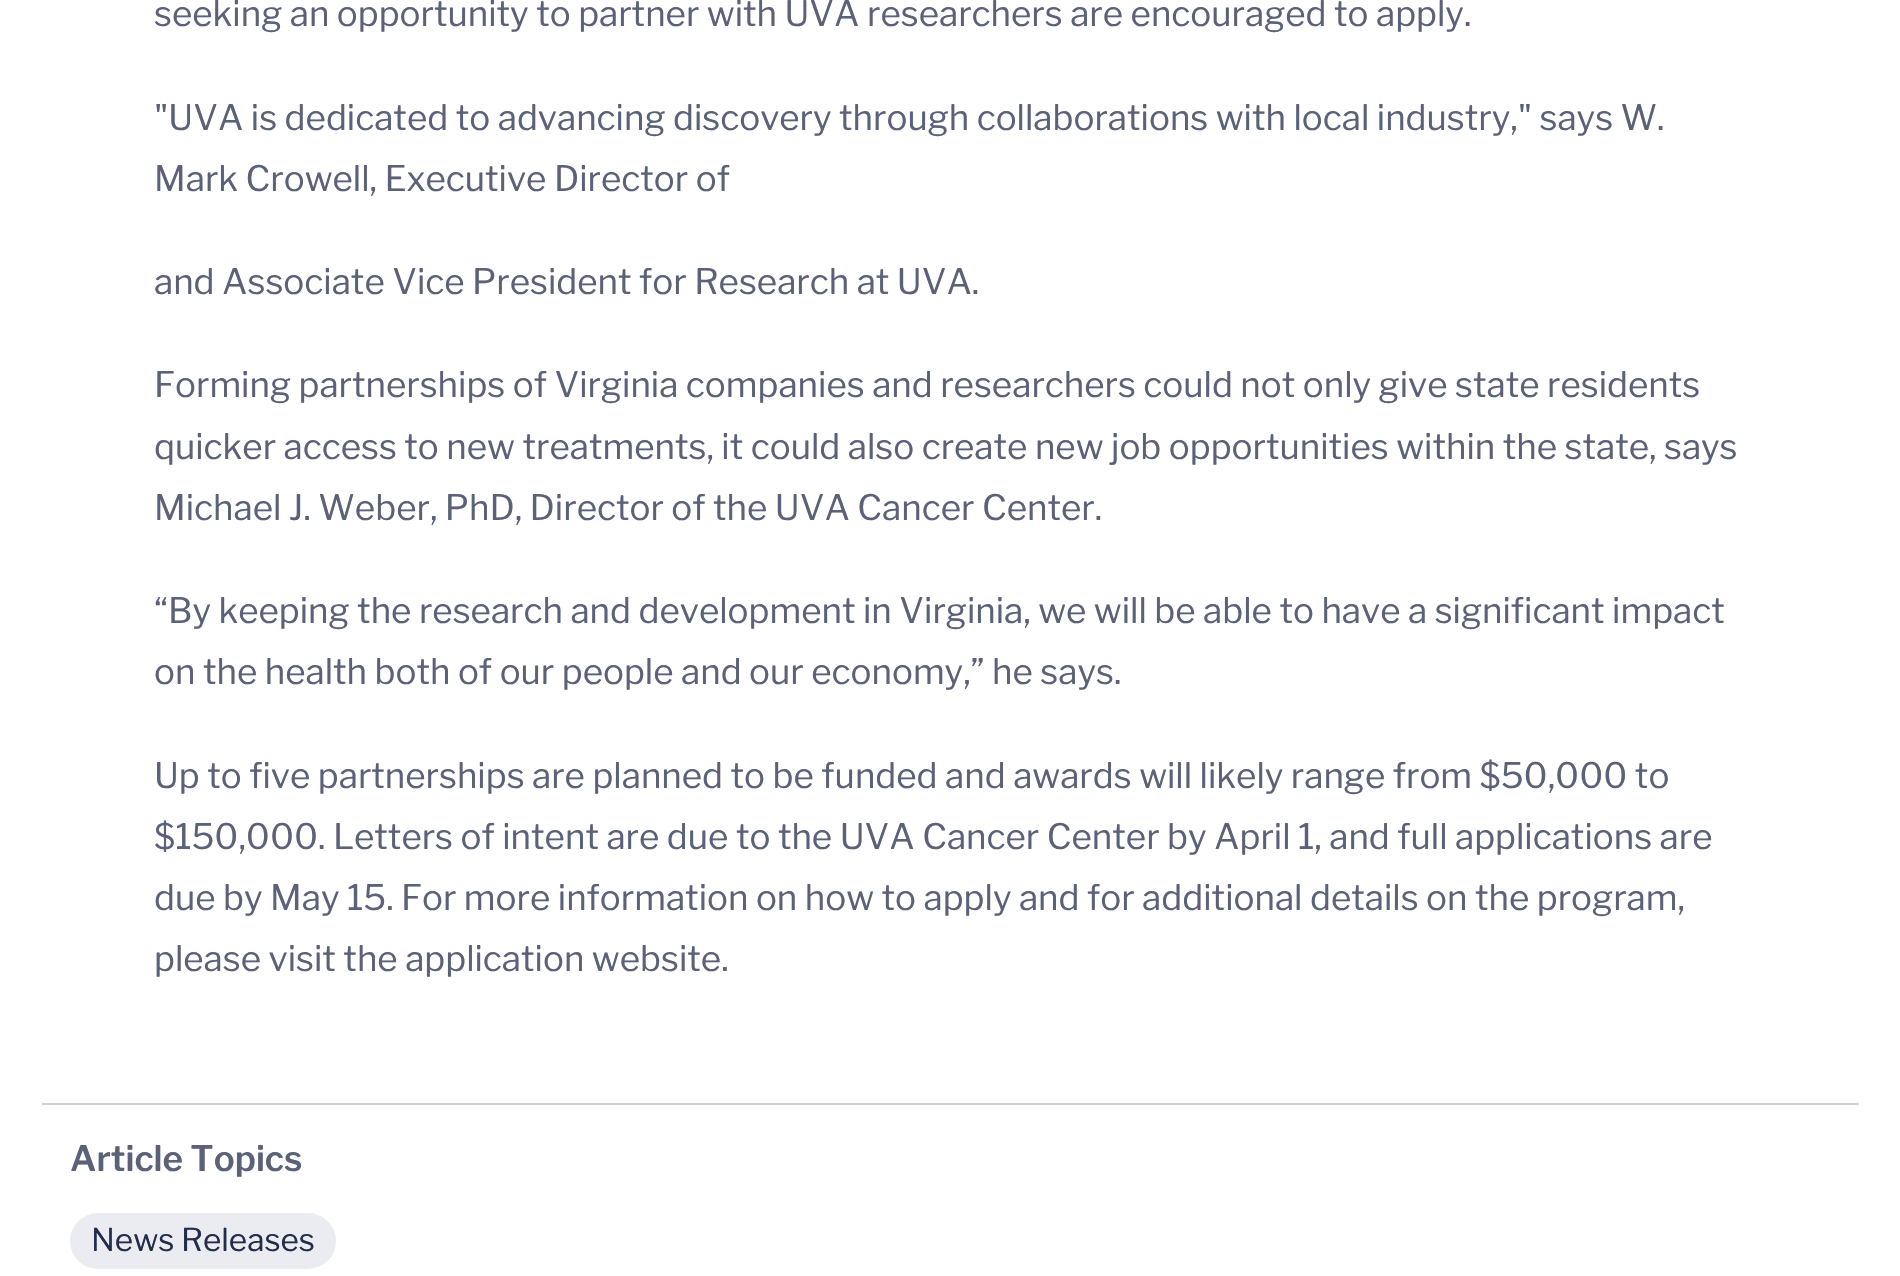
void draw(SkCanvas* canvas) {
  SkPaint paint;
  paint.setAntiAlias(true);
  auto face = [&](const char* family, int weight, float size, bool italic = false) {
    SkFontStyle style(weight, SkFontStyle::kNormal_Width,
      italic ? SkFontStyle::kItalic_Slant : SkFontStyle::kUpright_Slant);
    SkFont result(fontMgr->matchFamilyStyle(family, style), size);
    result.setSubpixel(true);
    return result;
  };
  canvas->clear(0xffffffff);
  paint.setColor(0xffced0d7);
  canvas->drawRect(SkRect::MakeXYWH(42, 1103, 1817, 2), paint);
  paint.setColor(0xffeaecf1);
  canvas->drawRoundRect(SkRect::MakeXYWH(70, 1213, 266, 56), 28, 28, paint);
  auto f0 = face("Libre Franklin", 400, 35);
  paint.setColor(0xff5a6178);
  {
    const struct { const char* s; float x, y; } items[] = {
      {"seeking an opportunity to partner with UVA researchers are encouraged to apply.", 154, 26},
      {"\"UVA is dedicated to advancing discovery through collaborations with local industry,\" says W.", 154, 130},
      {"Mark Crowell, Executive Director of", 154, 191},
      {"and Associate Vice President for Research at UVA.", 154, 294},
      {"Forming partnerships of Virginia companies and researchers could not only give state residents", 154, 397},
      {"quicker access to new treatments, it could also create new job opportunities within the state, says", 154, 459},
      {"Michael J. Weber, PhD, Director of the UVA Cancer Center.", 154, 520},
      {"“By keeping the research and development in Virginia, we will be able to have a significant impact", 154, 623},
      {"on the health both of our people and our economy,” he says.", 154, 684},
      {"Up to five partnerships are planned to be funded and awards will likely range from $50,000 to", 154, 788},
      {"$150,000. Letters of intent are due to the UVA Cancer Center by April 1, and full applications are", 154, 849},
      {"due by May 15. For more information on how to apply and for additional details on the program,", 154, 910},
      {"please visit the application website.", 154, 971},
    };
    for (auto [s, x, y] : items) {
      canvas->drawString(s, x, y, f0, paint);
    }
  }
  auto f1 = face("Libre Franklin", 600, 35);
  canvas->drawString("Article Topics", 70, 1171, f1, paint);
  auto f2 = face("Libre Franklin", 400, 31.5f);
  paint.setColor(0xff232d4b);
  canvas->drawString("News Releases", 91, 1251, f2, paint);
}
